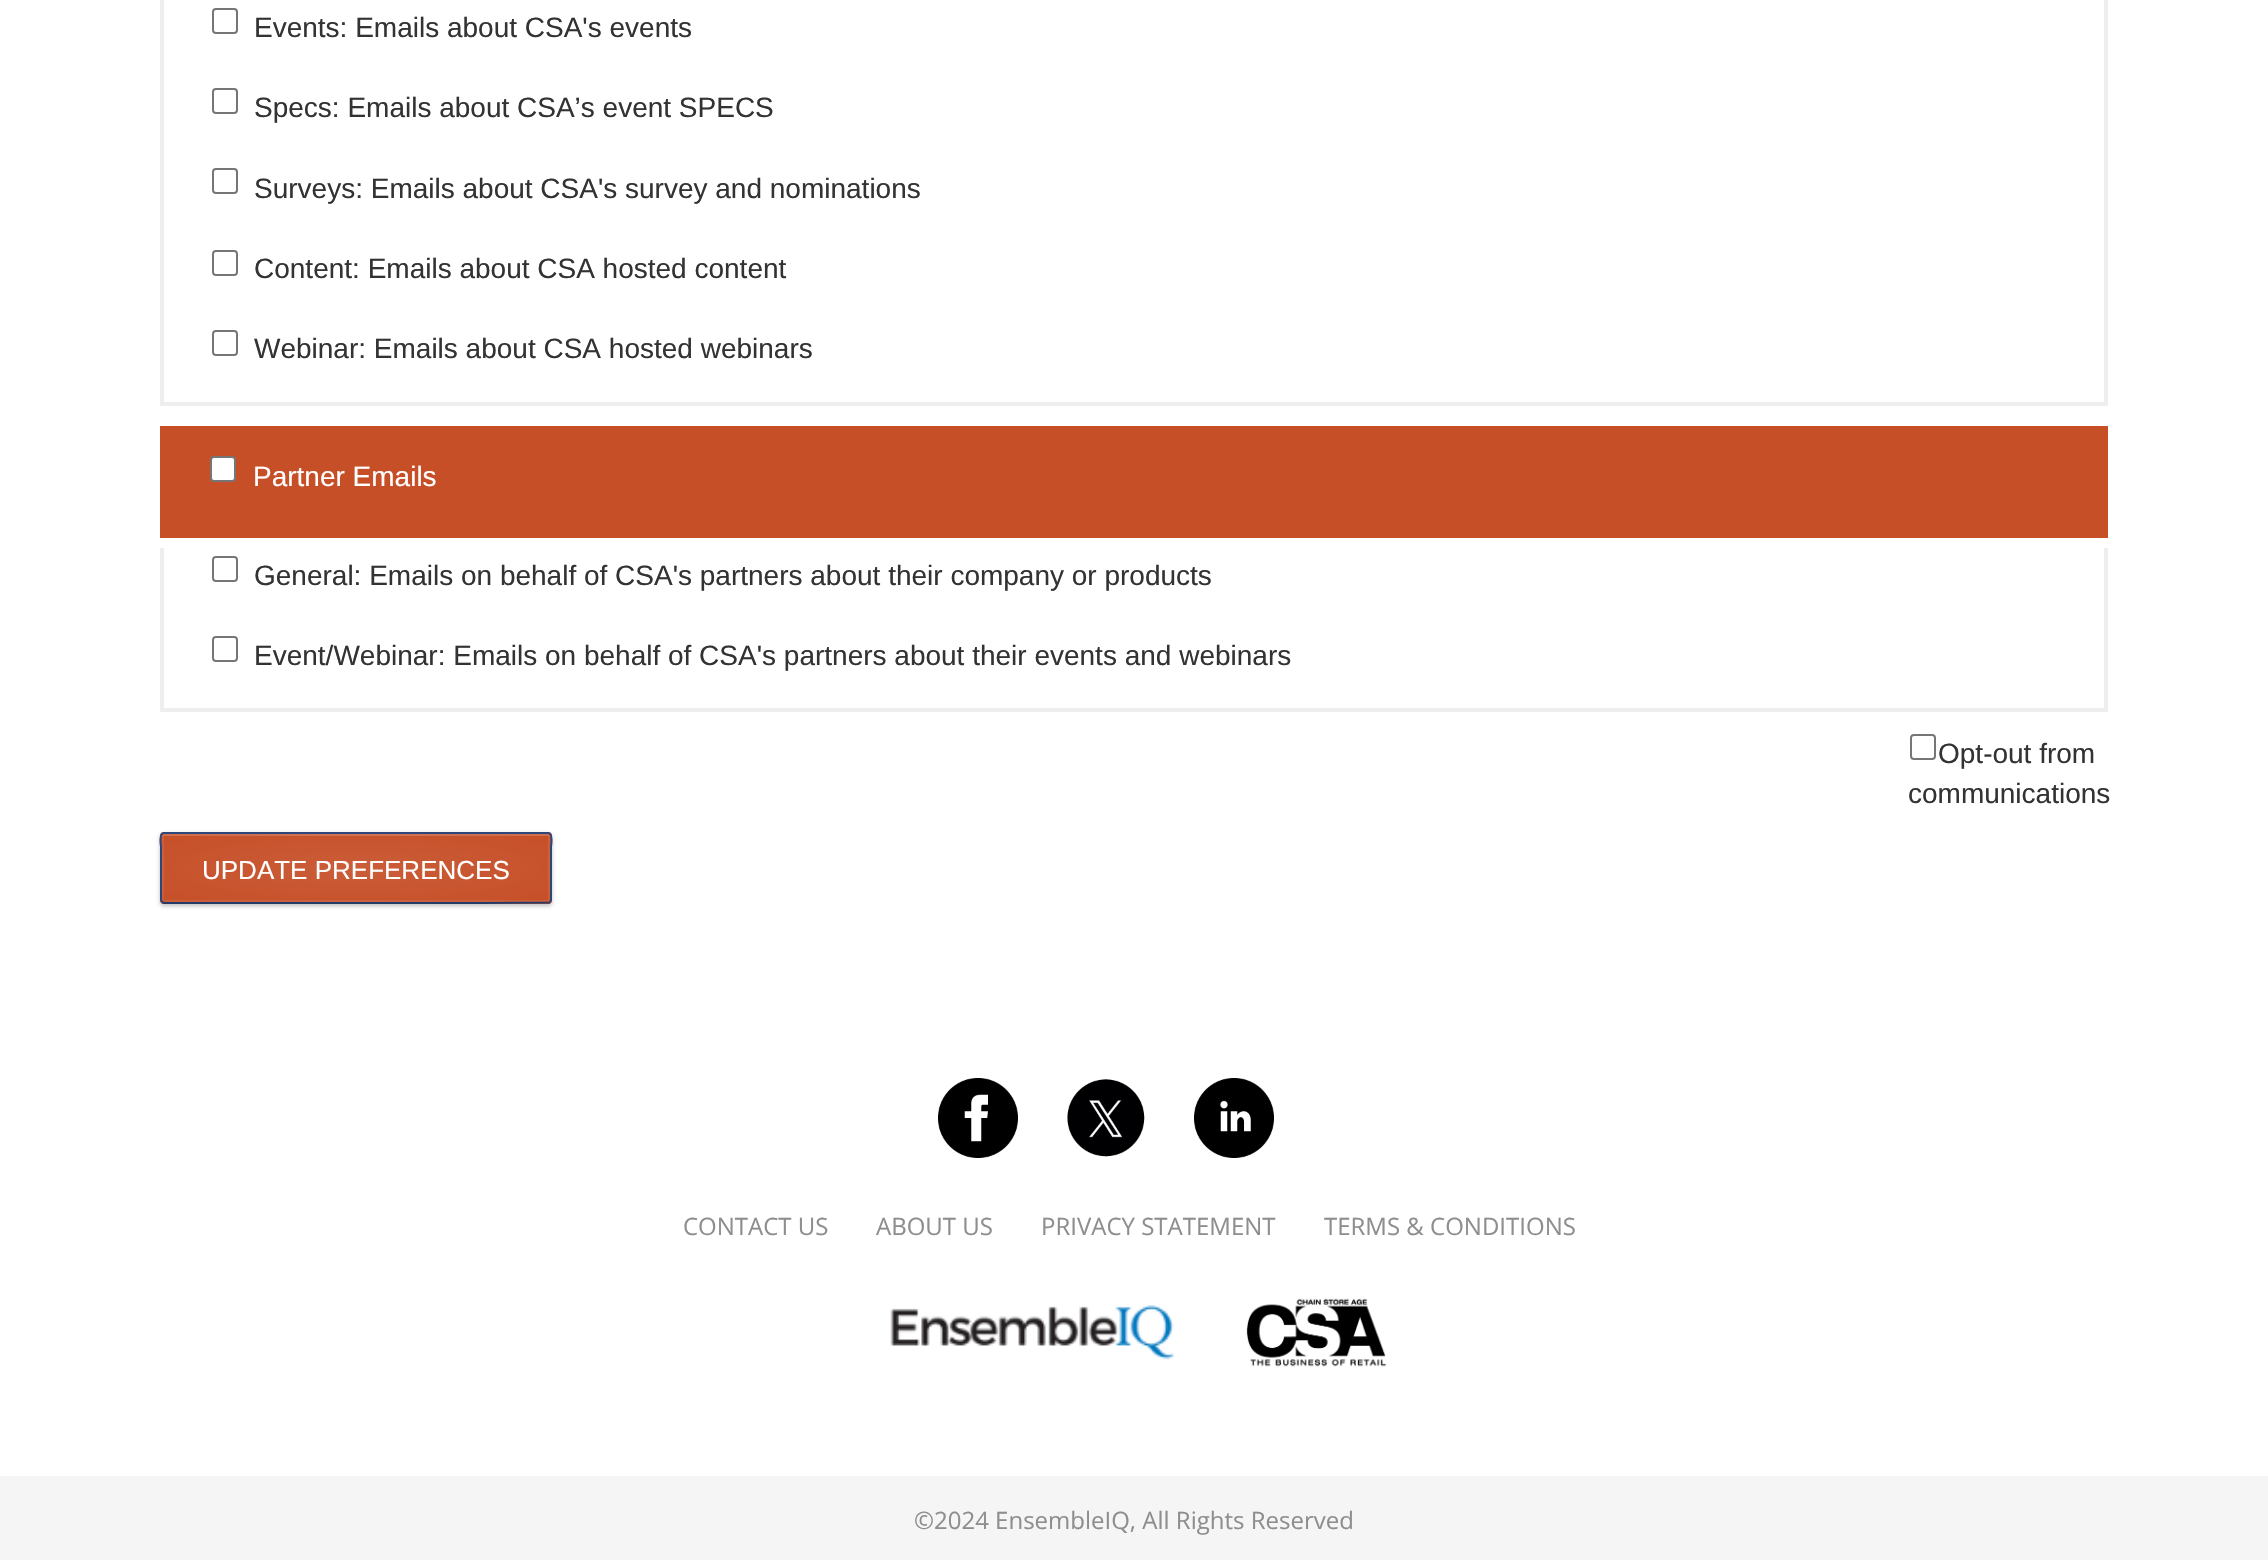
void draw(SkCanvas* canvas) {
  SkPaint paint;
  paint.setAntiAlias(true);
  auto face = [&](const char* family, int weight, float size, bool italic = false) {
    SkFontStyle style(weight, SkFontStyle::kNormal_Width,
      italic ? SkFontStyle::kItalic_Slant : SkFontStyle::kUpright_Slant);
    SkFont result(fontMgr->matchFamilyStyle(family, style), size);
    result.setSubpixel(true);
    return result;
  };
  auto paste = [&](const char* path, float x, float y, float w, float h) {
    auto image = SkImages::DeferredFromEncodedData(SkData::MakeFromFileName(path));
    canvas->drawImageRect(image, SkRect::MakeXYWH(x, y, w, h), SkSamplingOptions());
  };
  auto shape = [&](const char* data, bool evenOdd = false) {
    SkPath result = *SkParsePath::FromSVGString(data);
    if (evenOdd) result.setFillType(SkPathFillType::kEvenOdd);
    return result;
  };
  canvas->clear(0xffffffff);
  paint.setColor(0xffeeeeee);
  canvas->drawRect(SkRect::MakeXYWH(2104, 0, 4, 406), paint);
  canvas->drawRect(SkRect::MakeXYWH(160, 0, 4, 322), paint);
  paint.setStroke(true);
  paint.setStrokeWidth(2);
  paint.setColor(0xff767676);
  canvas->drawRoundRect(SkRect::MakeXYWH(213, 9, 24, 24), 3, 3, paint);
  canvas->drawRoundRect(SkRect::MakeXYWH(213, 89, 24, 24), 3, 3, paint);
  canvas->drawRoundRect(SkRect::MakeXYWH(213, 169, 24, 24), 3, 3, paint);
  canvas->drawRoundRect(SkRect::MakeXYWH(213, 251, 24, 24), 3, 3, paint);
  paint.setStroke(false);
  paint.setColor(0xffeeeeee);
  canvas->drawRect(SkRect::MakeXYWH(160, 402, 1948, 4), paint);
  canvas->drawRect(SkRect::MakeXYWH(160, 322, 4, 84), paint);
  paint.setStroke(true);
  paint.setColor(0xff767676);
  canvas->drawRoundRect(SkRect::MakeXYWH(213, 331, 24, 24), 3, 3, paint);
  paint.setStroke(false);
  paint.setColor(0xffc64f27);
  canvas->drawRect(SkRect::MakeXYWH(160, 426, 1948, 112), paint);
  paint.setColor(0xffffffff);
  canvas->drawRoundRect(SkRect::MakeXYWH(211, 457, 24, 24), 3, 3, paint);
  paint.setStroke(true);
  paint.setColor(0xff767676);
  canvas->drawRoundRect(SkRect::MakeXYWH(211, 457, 24, 24), 3, 3, paint);
  paint.setStroke(false);
  paint.setColor(0xffeeeeee);
  canvas->drawRect(SkRect::MakeXYWH(2104, 548, 4, 164), paint);
  canvas->drawRect(SkRect::MakeXYWH(160, 548, 4, 80), paint);
  paint.setStroke(true);
  paint.setColor(0xff767676);
  canvas->drawRoundRect(SkRect::MakeXYWH(213, 557, 24, 24), 3, 3, paint);
  paint.setStroke(false);
  paint.setColor(0xffeeeeee);
  canvas->drawRect(SkRect::MakeXYWH(160, 708, 1948, 4), paint);
  canvas->drawRect(SkRect::MakeXYWH(160, 628, 4, 84), paint);
  paint.setStroke(true);
  paint.setColor(0xff767676);
  canvas->drawRoundRect(SkRect::MakeXYWH(213, 637, 24, 24), 3, 3, paint);
  canvas->drawRoundRect(SkRect::MakeXYWH(1911, 735, 24, 24), 3, 3, paint);
  paint.setStroke(false);
  paint.setColor(0x40000000);
  paint.setMaskFilter(SkMaskFilter::MakeBlur(kNormal_SkBlurStyle, 2));
  canvas->drawRoundRect(SkRect::MakeXYWH(160, 834, 392, 72), 4, 4, paint);
  paint.setMaskFilter(nullptr);
  paint.setColor(0xffc64f27);
  canvas->drawRoundRect(SkRect::MakeXYWH(160, 832, 392, 72), 4, 4, paint);
  paint.setStroke(true);
  paint.setColor(0xffcb5d38);
  canvas->drawRoundRect(SkRect::MakeXYWH(163, 835, 386, 66), 1, 1, paint);
  paint.setStroke(false);
  paint.setColor(0xffd06d4c);
  canvas->drawPath(shape("M164 836H548C549 836 550 837 550 838V836C550 835 549 834 548 834H164C163 834 162 835 162 836V838C162 837 163 836 164 836Z"), paint);
  paint.setStroke(true);
  paint.setColor(0xff263c68);
  canvas->drawPath(shape("M550 902L549.5 902.5L484 903H164L162 902"), paint);
  paint.setColor(0xff2d477b);
  canvas->drawPath(shape("M162 902L161 900V846.5C161 846.5 158.5 833 164 833H548C553.5 833 551 846.5 551 846.5V900L550 902"), paint);
  paint.setStroke(false);
  {
    const SkColor colors[] = {0x14ffffff, 0x00ffffff};
    const float stops[] = {0, 1};
    SkMatrix m = SkMatrix::Translate(356, 868).preScale(274, 48);
    paint.setShader(SkGradientShader::MakeRadial({0, 0}, 1, colors, stops, 2, SkTileMode::kClamp, 0, &m));
    paint.setAlpha(255);
  }
  canvas->drawRect(SkRect::MakeXYWH(162, 834, 388, 68), paint);
  paste("img/1.png", 938, 1078, 80, 80);
  paste("img/2.png", 1067, 1079, 78, 78);
  paste("img/3.png", 1194, 1078, 80, 80);
  paste("img/4.png", 890, 1305, 285, 55);
  paste("img/5.png", 1246, 1298, 141, 69);
  paint.setShader(nullptr);
  paint.setColor(0xfff5f5f5);
  canvas->drawRect(SkRect::MakeXYWH(0, 1476, 2268, 84), paint);
  auto f0 = face("Liberation Sans", 400, 28);
  paint.setColor(0xff333333);
  {
    const struct { const char* s; float x, y; } items[] = {
      {"Events: Emails about CSA's events", 254, 37},
      {"Specs: Emails about CSA’s event SPECS", 254, 117},
      {"Surveys: Emails about CSA's survey and nominations", 254, 198},
      {"Content: Emails about CSA hosted content", 254, 278},
      {"Webinar: Emails about CSA hosted webinars", 254, 358},
    };
    for (auto [s, x, y] : items) {
      canvas->drawString(s, x, y, f0, paint);
    }
  }
  paint.setColor(0xffffffff);
  canvas->drawString("Partner Emails", 253, 486, f0, paint);
  paint.setColor(0xff333333);
  {
    const struct { const char* s; float x, y; } items[] = {
      {"General: Emails on behalf of CSA's partners about their company or products", 254, 585},
      {"Event/Webinar: Emails on behalf of CSA's partners about their events and webinars", 254, 665},
      {"Opt-out from", 1938, 763},
      {"communications", 1908, 803},
    };
    for (auto [s, x, y] : items) {
      canvas->drawString(s, x, y, f0, paint);
    }
  }
  auto f1 = face("Liberation Sans", 400, 26);
  paint.setColor(0xffffffff);
  canvas->drawString("UPDATE PREFERENCES", 202, 879, f1, paint);
  auto f2 = face("Open Sans", 400, 24);
  paint.setColor(0xff8e8e8e);
  {
    const struct { const char* s; float x, y; } items[] = {
      {"CONTACT US", 683, 1235},
      {"ABOUT US", 876, 1235},
      {"PRIVACY STATEMENT", 1041, 1235},
      {"TERMS & CONDITIONS", 1324, 1235},
      {"©2024 EnsembleIQ, All Rights Reserved", 914, 1529},
    };
    for (auto [s, x, y] : items) {
      canvas->drawString(s, x, y, f2, paint);
    }
  }
}
